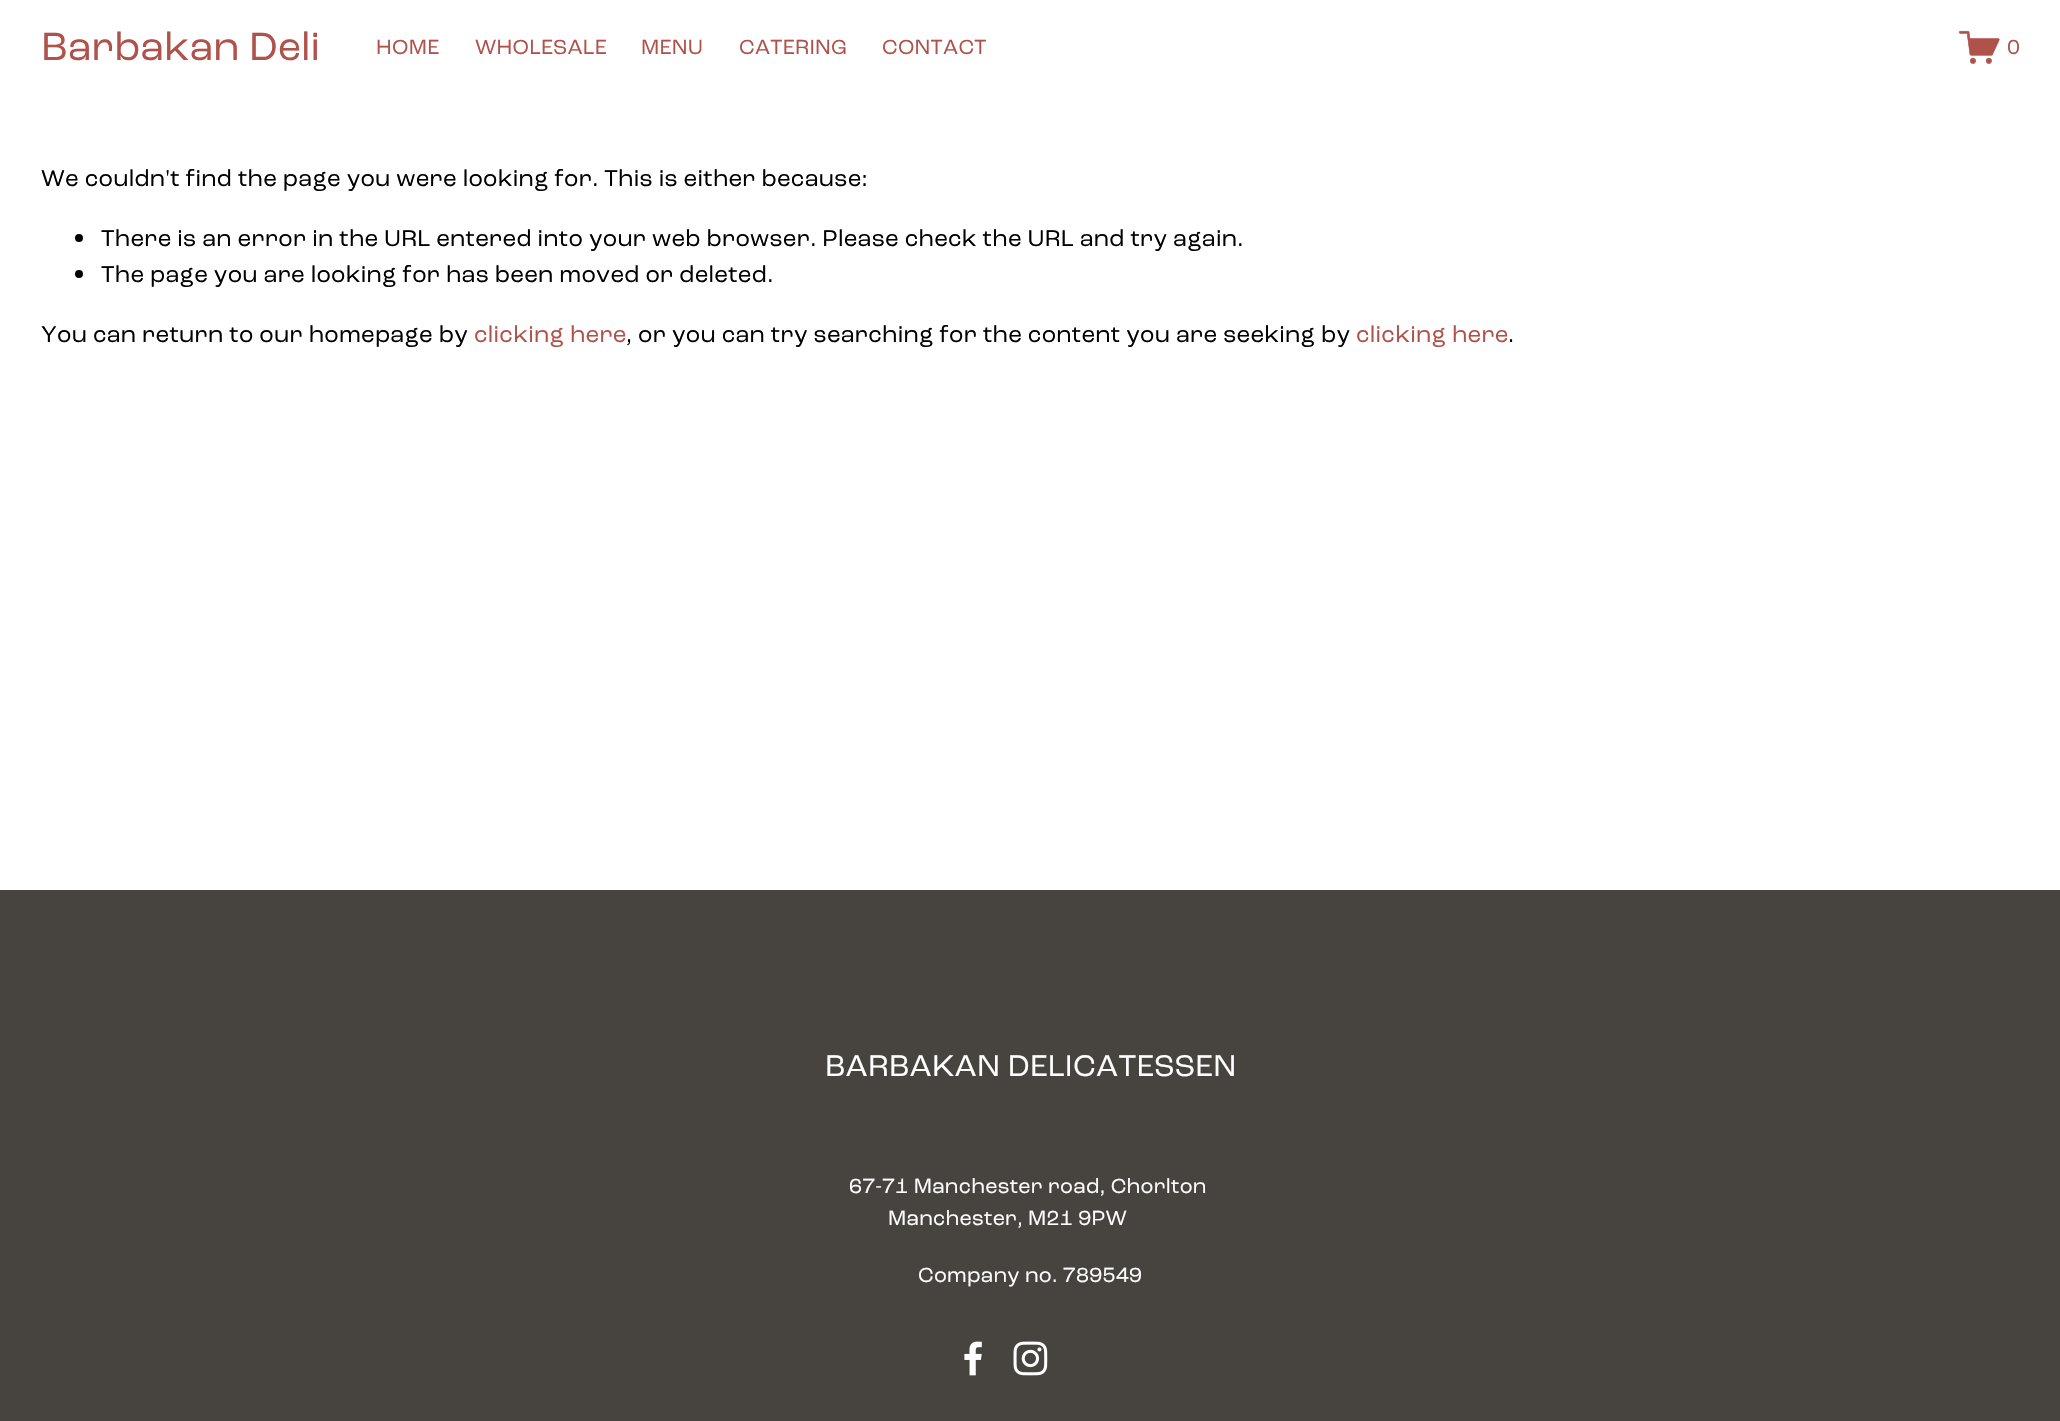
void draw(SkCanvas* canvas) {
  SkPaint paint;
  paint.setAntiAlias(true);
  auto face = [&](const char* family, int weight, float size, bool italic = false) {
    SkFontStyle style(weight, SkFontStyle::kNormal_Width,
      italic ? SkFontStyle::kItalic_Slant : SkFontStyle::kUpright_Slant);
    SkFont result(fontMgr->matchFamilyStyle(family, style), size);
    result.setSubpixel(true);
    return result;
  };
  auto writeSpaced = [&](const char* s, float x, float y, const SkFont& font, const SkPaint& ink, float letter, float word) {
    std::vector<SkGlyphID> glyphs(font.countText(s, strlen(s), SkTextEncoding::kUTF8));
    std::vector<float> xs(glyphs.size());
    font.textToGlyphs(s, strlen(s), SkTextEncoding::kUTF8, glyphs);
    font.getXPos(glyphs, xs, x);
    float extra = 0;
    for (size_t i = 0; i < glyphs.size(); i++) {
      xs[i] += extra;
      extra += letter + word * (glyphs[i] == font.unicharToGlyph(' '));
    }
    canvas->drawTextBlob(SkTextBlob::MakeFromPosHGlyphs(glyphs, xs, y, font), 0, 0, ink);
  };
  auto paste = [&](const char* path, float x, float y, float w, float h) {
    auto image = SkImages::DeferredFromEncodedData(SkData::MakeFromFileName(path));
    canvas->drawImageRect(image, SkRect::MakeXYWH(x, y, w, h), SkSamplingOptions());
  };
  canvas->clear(0xffffffff);
  paste("img/1.png", 1959, 30, 41, 34);
  paint.setColor(0xff000000);
  canvas->drawCircle(79, 238, 4, paint);
  canvas->drawCircle(79, 274, 4, paint);
  paint.setColor(0xff47433e);
  canvas->drawRect(SkRect::MakeXYWH(0, 890, 2060, 531), paint);
  paste("img/2.png", 964, 1341, 18, 35);
  paste("img/3.png", 1013, 1341, 35, 35);
  auto f0 = face("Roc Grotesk", 400, 41.25f);
  paint.setColor(0xffaf524b);
  canvas->drawString("Barbakan Deli", 41, 60, f0, paint);
  auto f1 = face("Roc Grotesk", 400, 21.5f);
  {
    const struct { const char* s; float x, y; } items[] = {
      {"HOME", 376, 54},
      {"WHOLESALE", 475, 54},
      {"MENU", 641, 54},
      {"CATERING", 739, 54},
      {"CONTACT", 882, 54},
      {"0", 2007, 54},
    };
    for (auto [s, x, y] : items) {
      writeSpaced(s, x, y, f1, paint, 0.25f, 0);
    }
  }
  auto f2 = face("Roc Grotesk", 400, 24);
  paint.setColor(0xff000000);
  {
    const struct { const char* s; float x, y; } items[] = {
      {"We couldn't find the page you were looking for. This is either because:", 41, 186},
      {"There is an error in the URL entered into your web browser. Please check the URL and try again.", 101, 246},
      {"The page you are looking for has been moved or deleted.", 101, 282},
      {"You can return to our homepage by", 41, 342},
    };
    for (auto [s, x, y] : items) {
      writeSpaced(s, x, y, f2, paint, 0.25f, 0);
    }
  }
  paint.setColor(0xffaf524b);
  writeSpaced("clicking here", 474, 342, f2, paint, 0.25f, 0);
  paint.setColor(0xff000000);
  writeSpaced(", or you can try searching for the content you are seeking by", 626, 342, f2, paint, 0.25f, 0);
  paint.setColor(0xffaf524b);
  writeSpaced("clicking here", 1356, 342, f2, paint, 0.25f, 0);
  paint.setColor(0xff000000);
  writeSpaced(".", 1508, 342, f2, paint, 0.25f, 0);
  auto f3 = face("Roc Grotesk", 400, 31.4f);
  paint.setColor(0xffffffff);
  writeSpaced("BARBAKAN DELICATESSEN", 825, 1076, f3, paint, 0.25f, 0);
  {
    const struct { const char* s; float x, y; } items[] = {
      {"67-71 Manchester road, Chorlton", 849, 1193},
      {"Manchester, M21 9PW", 888, 1225},
      {"Company no. 789549", 918, 1282},
    };
    for (auto [s, x, y] : items) {
      writeSpaced(s, x, y, f1, paint, 0.25f, 0);
    }
  }
}
